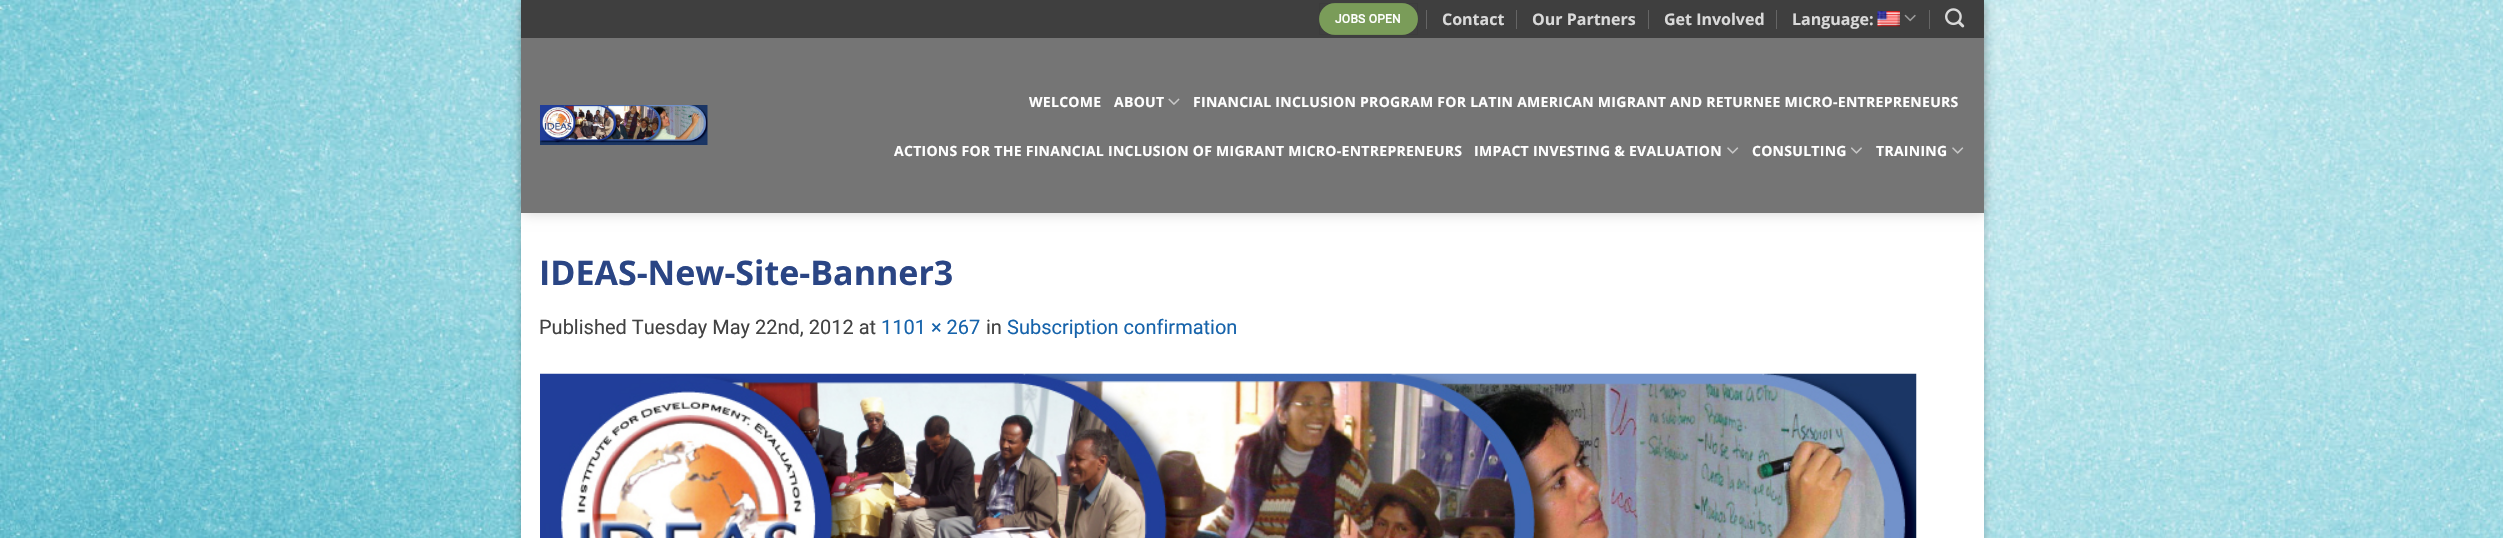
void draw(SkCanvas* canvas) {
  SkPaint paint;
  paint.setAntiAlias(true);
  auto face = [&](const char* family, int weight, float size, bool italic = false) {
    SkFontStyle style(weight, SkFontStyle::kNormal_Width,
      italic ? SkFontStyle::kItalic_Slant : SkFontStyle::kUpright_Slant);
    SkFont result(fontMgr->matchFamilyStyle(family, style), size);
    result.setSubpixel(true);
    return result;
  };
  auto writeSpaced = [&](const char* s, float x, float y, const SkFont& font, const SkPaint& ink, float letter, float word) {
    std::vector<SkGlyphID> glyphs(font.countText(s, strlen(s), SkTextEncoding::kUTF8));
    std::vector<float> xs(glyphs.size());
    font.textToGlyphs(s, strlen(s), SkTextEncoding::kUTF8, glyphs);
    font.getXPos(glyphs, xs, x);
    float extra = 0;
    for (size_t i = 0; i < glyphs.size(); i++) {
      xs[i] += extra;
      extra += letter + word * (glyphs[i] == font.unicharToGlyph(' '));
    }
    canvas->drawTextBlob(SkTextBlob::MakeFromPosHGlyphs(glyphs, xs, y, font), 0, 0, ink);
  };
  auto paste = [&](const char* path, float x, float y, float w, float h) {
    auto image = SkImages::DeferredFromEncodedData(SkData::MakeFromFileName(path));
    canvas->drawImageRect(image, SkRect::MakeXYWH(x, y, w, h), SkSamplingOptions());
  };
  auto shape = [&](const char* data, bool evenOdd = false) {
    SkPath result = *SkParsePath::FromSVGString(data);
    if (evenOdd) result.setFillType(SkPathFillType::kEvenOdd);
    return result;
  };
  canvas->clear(0xffffffff);
  paste("img/1.png", 0, 0, 2503, 538);
  paint.setColor(0x3b000000);
  paint.setMaskFilter(SkMaskFilter::MakeBlur(kNormal_SkBlurStyle, 4));
  canvas->drawRect(SkRect::MakeXYWH(521, 4, 1463, 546), paint);
  paint.setMaskFilter(nullptr);
  paint.setColor(0xffffffff);
  canvas->drawRect(SkRect::MakeXYWH(521, 38, 1463, 500), paint);
  canvas->save();
  canvas->clipPath(shape("M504 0H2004V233H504ZM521 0H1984V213H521Z", true), true);
  paint.setColor(0x26000000);
  paint.setMaskFilter(SkMaskFilter::MakeBlur(kNormal_SkBlurStyle, 6));
  canvas->drawRect(SkRect::MakeXYWH(523, 1, 1462, 213), paint);
  paint.setMaskFilter(nullptr);
  canvas->restore();
  paint.setColor(0xff3f3f3f);
  canvas->drawRect(SkRect::MakeXYWH(521, 0, 1463, 38), paint);
  paint.setColor(0xff7a9c59);
  canvas->drawRoundRect(SkRect::MakeXYWH(1319, 3, 99, 32), 16, 16, paint);
  paint.setStroke(true);
  paint.setStrokeWidth(1);
  paint.setColor(0x0d000000);
  canvas->drawRect(SkRect::MakeXYWH(1319.5f, 3.5f, 98, 31), paint);
  paint.setStroke(false);
  {
    const struct { float x, y, w, h; SkColor color; } items[] = {
      {1426, 10, 1, 19, 0xff656565},
      {1516, 10, 1, 19, 0xff656565},
      {1648, 10, 1, 19, 0xff656565},
      {1776, 10, 1, 19, 0xff656565},
    };
    for (auto [x, y, w, h, color] : items) {
      paint.setColor(color);
      canvas->drawRect(SkRect::MakeXYWH(x, y, w, h), paint);
    }
  }
  paste("img/2.png", 1877, 11, 23, 16);
  paste("img/3.png", 1904, 14, 12, 8);
  canvas->drawRect(SkRect::MakeXYWH(1929, 10, 1, 19), paint);
  paste("img/4.png", 1945, 8, 20, 20);
  paint.setColor(0x8a000000);
  canvas->drawRect(SkRect::MakeXYWH(521, 38, 1463, 175), paint);
  paste("img/5.png", 540, 105, 168, 40);
  paste("img/6.png", 1168, 98, 12, 7);
  paste("img/7.png", 1727, 147, 12, 7);
  paste("img/8.png", 1851, 147, 11, 7);
  paste("img/7.png", 1952, 147, 12, 7);
  paste("img/9.png", 540, 373, 1377, 165);
  auto f0 = face("Roboto", 700, 12);
  paint.setColor(0xffffffff);
  writeSpaced("JOBS OPEN", 1335, 23, f0, paint, 0.25f, 0);
  auto f1 = face("Open Sans", 700, 16);
  paint.setColor(0xffd9d9d9);
  {
    const struct { const char* s; float x, y; } items[] = {
      {"Contact", 1442, 25},
      {"Our Partners", 1532, 25},
      {"Get Involved", 1664, 25},
      {"Language:", 1792, 25},
    };
    for (auto [s, x, y] : items) {
      canvas->drawString(s, x, y, f1, paint);
    }
  }
  auto f2 = face("Open Sans", 700, 14);
  paint.setColor(0xffffffff);
  {
    const struct { const char* s; float x, y; } items[] = {
      {"WELCOME", 1029, 107},
      {"ABOUT", 1114, 107},
      {"FINANCIAL INCLUSION PROGRAM FOR LATIN AMERICAN MIGRANT AND RETURNEE MICRO-ENTREPRENEURS", 1193, 107},
      {"ACTIONS FOR THE FINANCIAL INCLUSION OF MIGRANT MICRO-ENTREPRENEURS", 894, 156},
      {"IMPACT INVESTING & EVALUATION", 1474, 156},
      {"CONSULTING", 1752, 156},
      {"TRAINING", 1876, 156},
    };
    for (auto [s, x, y] : items) {
      writeSpaced(s, x, y, f2, paint, 0.28f, 0);
    }
  }
  auto f3 = face("Open Sans", 700, 34);
  paint.setColor(0xff2a4584);
  canvas->drawString("IDEAS-New-Site-Banner3", 539, 285, f3, paint);
  auto f4 = face("Roboto", 400, 20);
  paint.setColor(0xff424242);
  canvas->drawString("Published Tuesday May 22nd, 2012 at", 539, 334, f4, paint);
  paint.setColor(0xff1663ab);
  canvas->drawString("1101 × 267", 881, 334, f4, paint);
  paint.setColor(0xff424242);
  canvas->drawString("in", 986, 334, f4, paint);
  paint.setColor(0xff1663ab);
  canvas->drawString("Subscription confirmation", 1007, 334, f4, paint);
}
